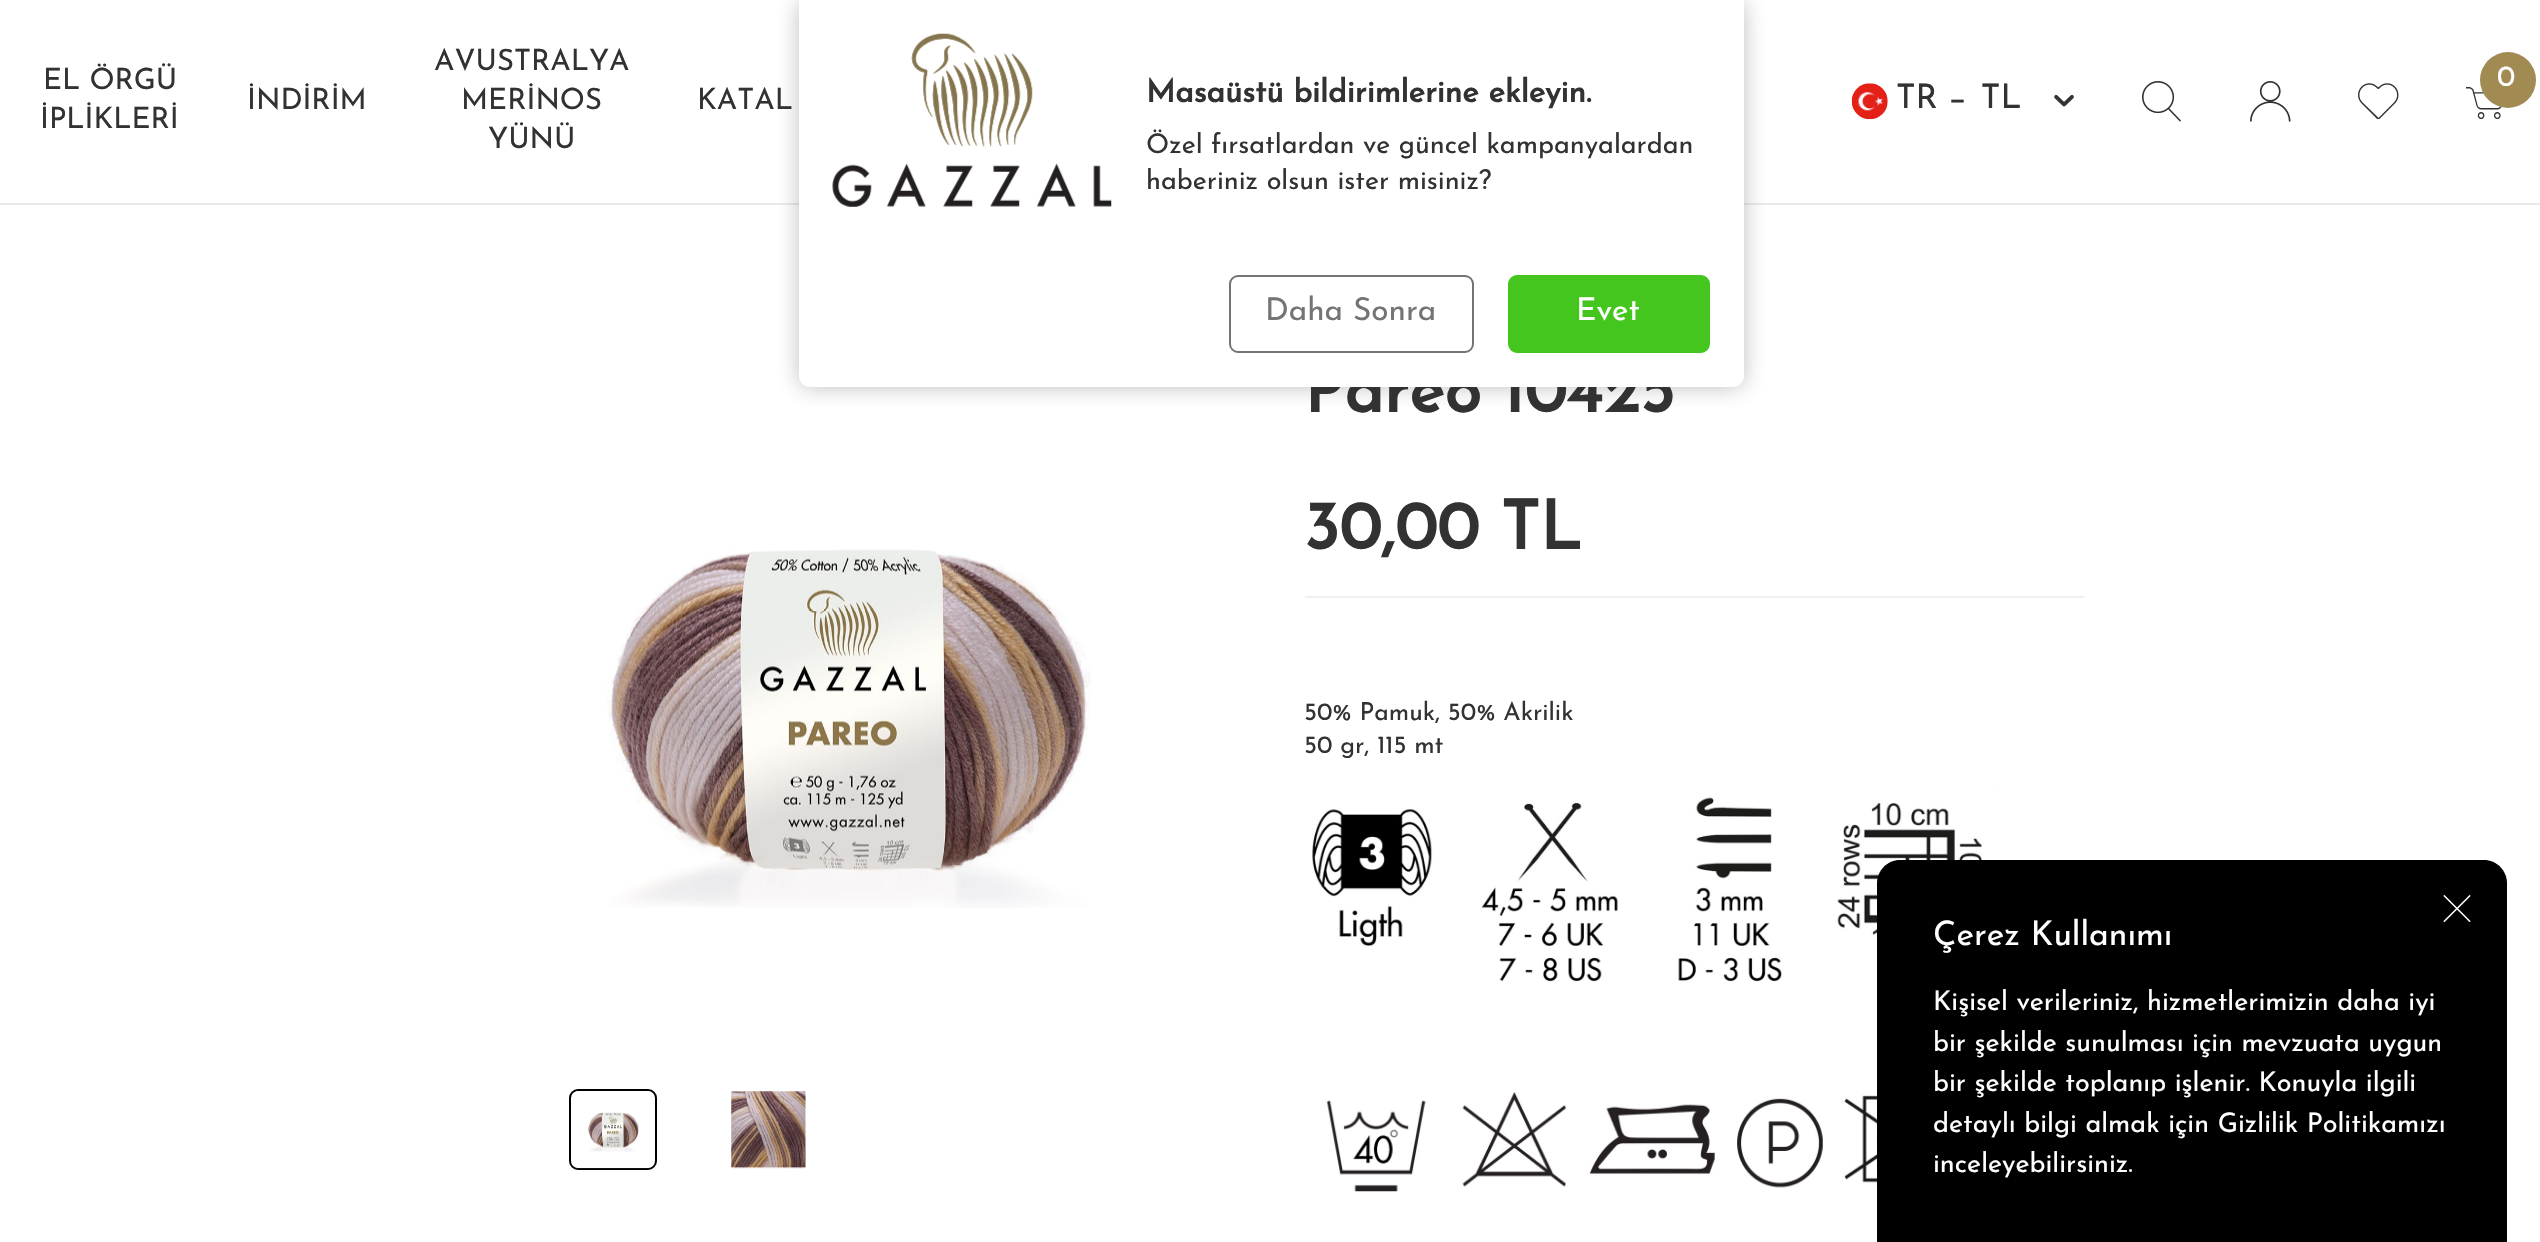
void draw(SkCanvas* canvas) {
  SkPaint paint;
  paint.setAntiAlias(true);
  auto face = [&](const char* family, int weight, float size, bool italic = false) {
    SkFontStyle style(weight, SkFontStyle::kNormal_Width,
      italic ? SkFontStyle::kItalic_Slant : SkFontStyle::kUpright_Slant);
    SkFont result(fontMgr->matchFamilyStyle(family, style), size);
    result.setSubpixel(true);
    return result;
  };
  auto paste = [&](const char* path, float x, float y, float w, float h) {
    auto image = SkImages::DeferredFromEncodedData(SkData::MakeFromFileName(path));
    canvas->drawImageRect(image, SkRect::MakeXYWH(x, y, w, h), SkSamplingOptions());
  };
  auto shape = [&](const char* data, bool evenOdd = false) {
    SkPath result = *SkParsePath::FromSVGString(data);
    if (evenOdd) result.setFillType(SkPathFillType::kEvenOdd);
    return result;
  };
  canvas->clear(0xffffffff);
  paint.setColor(0xffeaeaea);
  canvas->drawRect(SkRect::MakeXYWH(0, 203, 2540, 2), paint);
  paste("img/1.png", 2466, 87, 36, 32);
  paint.setColor(0xffa18b53);
  canvas->drawCircle(2508, 80, 28, paint);
  paste("img/2.png", 1851, 83, 37, 37);
  paste("img/3.png", 2054, 94, 20, 13);
  paste("img/4.png", 2142, 81, 39, 41);
  paste("img/5.png", 2250, 81, 41, 41);
  paste("img/6.png", 2358, 83, 41, 36);
  paint.setColor(0x4d282828);
  paint.setMaskFilter(SkMaskFilter::MakeBlur(kNormal_SkBlurStyle, 11));
  canvas->drawRoundRect(SkRect::MakeXYWH(799, 0, 945, 387), 11, 11, paint);
  paint.setMaskFilter(nullptr);
  paste("img/8.png", 607, 549, 484, 359);
  paint.setStroke(true);
  paint.setStrokeWidth(2);
  paint.setColor(0xff000000);
  canvas->drawRoundRect(SkRect::MakeXYWH(570, 1090, 86, 79), 8, 8, paint);
  paste("img/9.png", 576, 1091, 75, 78);
  paste("img/10.png", 731, 1091, 75, 78);
  paint.setStroke(false);
  paint.setColor(0xfff0f0f0);
  canvas->drawRect(SkRect::MakeXYWH(1305, 596, 779, 2), paint);
  paste("img/11.png", 1312, 787, 688, 195);
  paste("img/12.png", 1326, 1092, 551, 100);
  paint.setColor(0xff000000);
  canvas->drawPath(shape("M1900 860H2484C2496.5 860 2507 870.5 2507 883V1242H1877V883C1877 870.5 1887.5 860 1900 860Z"), paint);
  paste("img/13.png", 2443, 895, 28, 27);
  auto f0 = face("Josefin Sans", 100, 29.25f);
  paint.setColor(0xff323232);
  {
    const struct { const char* s; float x, y; } items[] = {
      {"EL ÖRGÜ", 43, 89},
      {"İPLİKLERİ", 40, 128},
      {"İNDİRİM", 247, 109},
      {"AVUSTRALYA", 434, 70},
      {"MERİNOS", 461, 109},
      {"YÜNÜ", 488, 148},
      {"KATAL", 697, 109},
    };
    for (auto [s, x, y] : items) {
      canvas->drawString(s, x, y, f0, paint);
    }
  }
  paint.setColor(0xffffffff);
  canvas->drawString("0", 2497, 86, f0, paint);
  auto f1 = face("Josefin Sans", 100, 33.75f);
  paint.setColor(0xff323232);
  canvas->drawString("TR − TL", 1896, 108, f1, paint);
  auto f2 = face("Josefin Sans", 700, 67.5f);
  canvas->drawString("Pareo 10425", 1304, 412, f2, paint);
  paint.setColor(0xffffffff);
  canvas->drawPath(shape("M799 0H1744V376C1744 382 1739 387 1733 387H810C804 387 799 382 799 376Z"), paint);
  paint.setColor(0xff44c61f);
  canvas->drawRoundRect(SkRect::MakeXYWH(1509, 276, 200, 76), 8, 8, paint);
  paint.setStroke(true);
  canvas->drawRoundRect(SkRect::MakeXYWH(1509, 276, 200, 76), 8, 8, paint);
  auto f3 = face("Josefin Sans", 100, 31.5f);
  paint.setStroke(false);
  paint.setColor(0xffffffff);
  canvas->drawString("Evet", 1576, 320, f3, paint);
  paint.setStroke(true);
  paint.setColor(0xff747474);
  canvas->drawRoundRect(SkRect::MakeXYWH(1230, 276, 243, 76), 8, 8, paint);
  paint.setStroke(false);
  canvas->drawString("Daha Sonra", 1265, 320, f3, paint);
  auto f4 = face("Josefin Sans", 100, 27);
  paint.setColor(0xff323232);
  canvas->drawString("haberiniz olsun ister misiniz?", 1146, 189, f4, paint);
  canvas->drawString("Özel fırsatlardan ve güncel kampanyalardan", 1146, 153, f4, paint);
  auto f5 = face("Josefin Sans", 700, 31.5f);
  canvas->drawString("Masaüstü bildirimlerine ekleyin.", 1146, 102, f5, paint);
  paste("img/7.png", 832, 33, 280, 174);
  canvas->drawString("30,00 TL", 1304, 549, f2, paint);
  auto f6 = face("Josefin Sans", 100, 24.75f);
  canvas->drawString("50% Pamuk, 50% Akrilik", 1304, 720, f6, paint);
  canvas->drawString("50 gr, 115 mt", 1304, 753, f6, paint);
  paint.setColor(0xffffffff);
  canvas->drawString("Çerez Kullanımı", 1933, 945, f1, paint);
  {
    const struct { const char* s; float x, y; } items[] = {
      {"Kişisel verileriniz, hizmetlerimizin daha iyi", 1933, 1010},
      {"bir şekilde sunulması için mevzuata uygun", 1933, 1051},
      {"bir şekilde toplanıp işlenir. Konuyla ilgili", 1933, 1091},
      {"detaylı bilgi almak için Gizlilik Politikamızı", 1933, 1132},
      {"inceleyebilirsiniz.", 1933, 1172},
    };
    for (auto [s, x, y] : items) {
      canvas->drawString(s, x, y, f4, paint);
    }
  }
}
